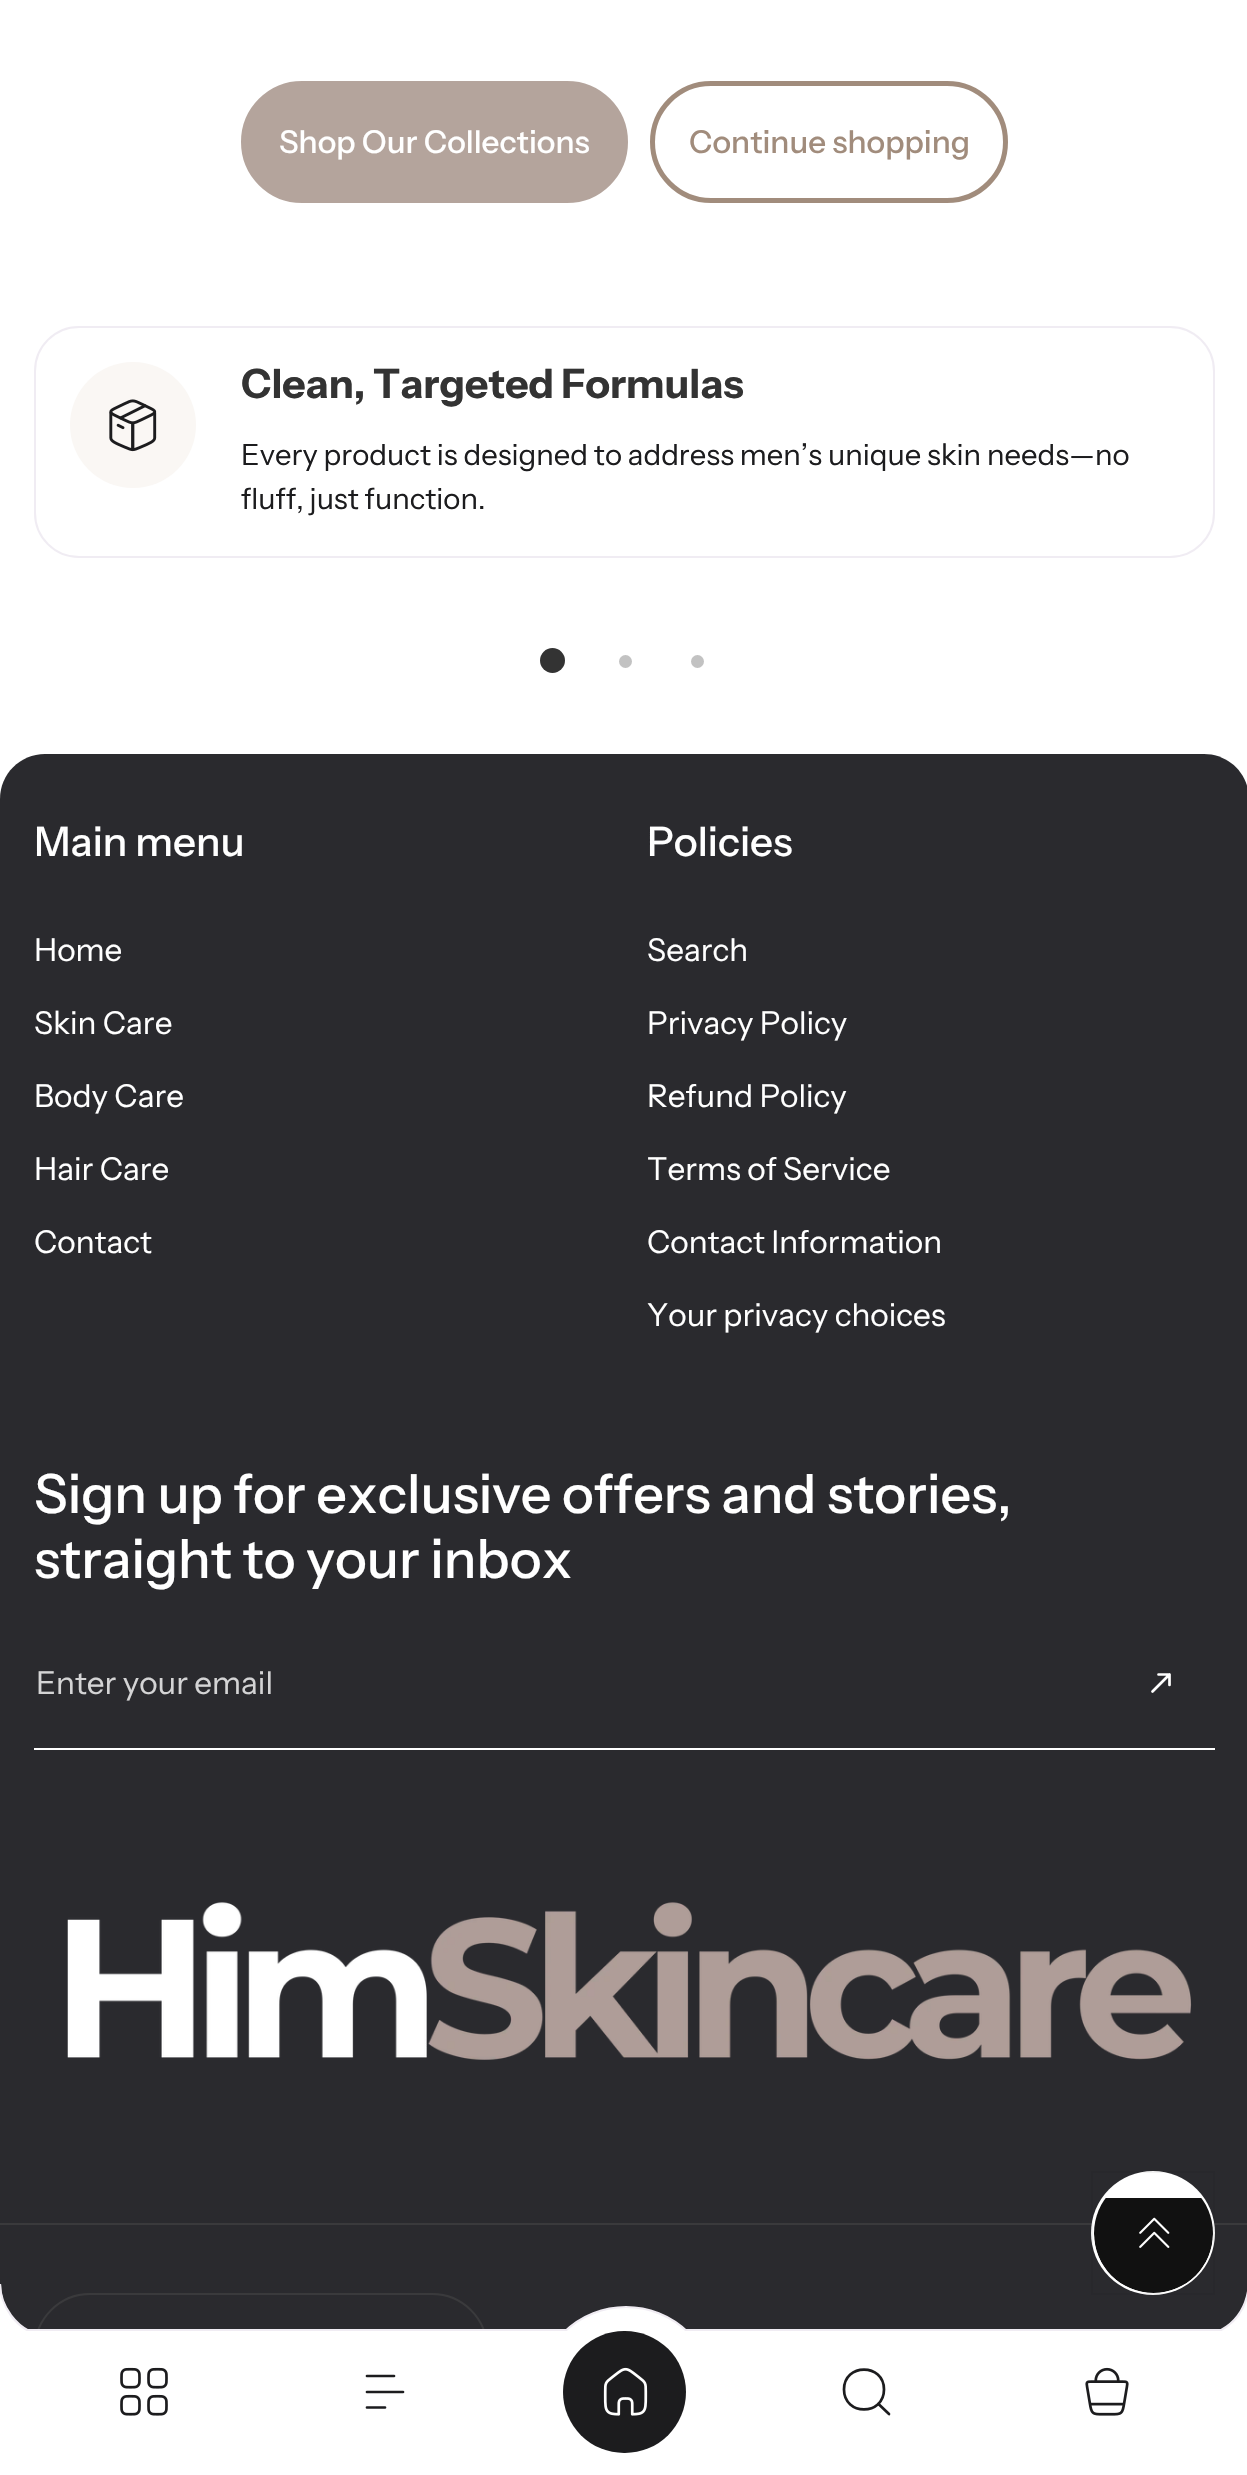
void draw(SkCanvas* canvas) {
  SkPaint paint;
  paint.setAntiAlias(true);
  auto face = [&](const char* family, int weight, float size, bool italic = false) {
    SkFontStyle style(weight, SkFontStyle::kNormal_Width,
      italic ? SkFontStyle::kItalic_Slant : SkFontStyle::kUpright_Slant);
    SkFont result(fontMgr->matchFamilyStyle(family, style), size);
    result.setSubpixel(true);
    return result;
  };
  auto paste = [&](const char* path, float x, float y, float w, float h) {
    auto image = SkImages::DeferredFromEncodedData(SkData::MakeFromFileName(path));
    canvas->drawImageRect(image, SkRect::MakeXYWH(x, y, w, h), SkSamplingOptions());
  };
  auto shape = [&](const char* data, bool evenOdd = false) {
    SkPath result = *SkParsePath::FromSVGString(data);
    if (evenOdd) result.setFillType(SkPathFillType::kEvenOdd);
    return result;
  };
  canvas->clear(0xffffffff);
  paint.setColor(0xffb4a49c);
  canvas->drawRoundRect(SkRect::MakeXYWH(243.5f, 83.5f, 382, 117), 58.5f, 58.5f, paint);
  paint.setStroke(true);
  paint.setStrokeWidth(5);
  canvas->drawRoundRect(SkRect::MakeXYWH(243.5f, 83.5f, 382, 117), 58.5f, 58.5f, paint);
  paint.setColor(0xffa18c7c);
  canvas->drawRoundRect(SkRect::MakeXYWH(652.5f, 83.5f, 353, 117), 58.5f, 58.5f, paint);
  paint.setStrokeWidth(2);
  paint.setColor(0xfff0ecf3);
  canvas->drawRoundRect(SkRect::MakeXYWH(35, 327, 1179, 230), 44, 44, paint);
  paint.setStroke(false);
  paint.setColor(0xfffaf7f4);
  canvas->drawCircle(133, 425, 63, paint);
  paste("img/1.png", 109, 399, 48, 53);
  paint.setColor(0xff333333);
  canvas->drawCircle(552.5f, 660.5f, 12.5f, paint);
  paint.setColor(0xffc2c2c2);
  canvas->drawCircle(625.5f, 661.5f, 6.5f, paint);
  canvas->drawCircle(697.5f, 661.5f, 6.5f, paint);
  paint.setColor(0xff2a2a2e);
  canvas->drawPath(shape("M45 754H1204C1229 754 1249 774 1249 799V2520H0V799C0 774 20 754 45 754Z"), paint);
  paint.setStroke(true);
  paint.setStrokeWidth(2.7f);
  paint.setStrokeCap(SkPaint::kRound_Cap);
  paint.setStrokeJoin(SkPaint::kRound_Join);
  paint.setColor(0xffffffff);
  canvas->drawPath(shape("M1169.5 1674.5L1152.5 1691.5M1158.5 1674.5H1169.5V1685"), paint);
  paint.setStroke(false);
  canvas->drawRect(SkRect::MakeXYWH(34, 1748, 1181, 2), paint);
  paste("img/2.png", 67, 1902, 1125, 158);
  paint.setColor(0xff3a3a3c);
  canvas->drawRect(SkRect::MakeXYWH(0, 2223, 1247, 2), paint);
  paint.setStroke(true);
  paint.setStrokeWidth(2);
  paint.setStrokeCap(SkPaint::kButt_Cap);
  paint.setStrokeJoin(SkPaint::kMiter_Join);
  canvas->drawRoundRect(SkRect::MakeXYWH(35, 2294, 452, 110), 55, 55, paint);
  paint.setStroke(false);
  paint.setColor(0xfff0ecf3);
  canvas->drawRect(SkRect::MakeXYWH(27, 2329, 1194, 2), paint);
  paint.setColor(0xffffffff);
  canvas->drawPath(shape("M1195 2338H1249V2284H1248C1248 2313 1224 2337 1195 2337Z", true), paint);
  paint.setStroke(true);
  paint.setStrokeWidth(2.2f);
  paint.setColor(0xfff0ecf3);
  canvas->drawPath(shape("M1195 2337.5C1210.5 2337.5 1245.5 2326.5 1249 2284"), paint);
  paint.setStroke(false);
  paint.setColor(0xffffffff);
  canvas->drawCircle(1153, 2233, 62, paint);
  paint.setStroke(true);
  paint.setStrokeWidth(2);
  paint.setColor(0x0d000000);
  canvas->drawRect(SkRect::MakeXYWH(1092, 2172, 122, 122), paint);
  canvas->save();
  canvas->clipPath(shape("M1153.5 2174C1186.5 2174 1213 2200.5 1213 2233.5C1213 2266.5 1186.5 2293 1153.5 2293C1120.5 2293 1094 2266.5 1094 2233.5C1094 2200.5 1120.5 2174 1153.5 2174Z"), true);
  paint.setStroke(false);
  paint.setColor(0xff111111);
  canvas->drawPath(shape("M1094 2198H1213V2233.5C1213 2266.5 1186.5 2293 1153.5 2293C1120.5 2293 1094 2266.5 1094 2233.5Z"), paint);
  canvas->restore();
  paste("img/3.png", 1139, 2217, 31, 31);
  paint.setColor(0xffffffff);
  canvas->drawPath(shape("M0 2338H54V2337C24 2337 1 2313 1 2284H0Z"), paint);
  paint.setStroke(true);
  paint.setStrokeWidth(2.2f);
  paint.setColor(0xfff0ecf3);
  canvas->drawPath(shape("M0 2284C0 2299.5 11.5 2334.5 54 2338"), paint);
  paint.setStroke(false);
  paint.setColor(0xffffffff);
  canvas->drawCircle(626, 2396, 89, paint);
  paint.setStroke(true);
  paint.setStrokeWidth(2);
  paint.setColor(0xfff0ecf3);
  canvas->drawCircle(626, 2396, 89, paint);
  paint.setStroke(false);
  paint.setColor(0xffffffff);
  canvas->drawRect(SkRect::MakeXYWH(0, 2331, 1247, 144), paint);
  paste("img/4.png", 120, 2367, 48, 49);
  paint.setStroke(true);
  paint.setStrokeWidth(2.7f);
  paint.setStrokeCap(SkPaint::kRound_Cap);
  paint.setStrokeJoin(SkPaint::kRound_Join);
  paint.setColor(0xff1c1c1e);
  canvas->drawPath(shape("M367 2376H394M367 2392H403M367 2407.5H385"), paint);
  paint.setStroke(false);
  canvas->drawRoundRect(SkRect::MakeXYWH(563, 2331, 123, 122), 61, 61, paint);
  paste("img/5.png", 603, 2367, 45, 49);
  paint.setStroke(true);
  canvas->drawPath(shape("M878.5 2404L889 2414"), paint);
  paint.setStrokeCap(SkPaint::kButt_Cap);
  canvas->drawPath(shape("M884 2389.5C884 2363 844 2363 844 2389.5C844 2416 884 2416 884 2389.5Z"), paint);
  paste("img/6.png", 1085, 2367, 44, 49);
  auto f0 = face("Instrument Sans", 500, 31.5f);
  paint.setStroke(false);
  paint.setColor(0xffffffff);
  canvas->drawString("Shop Our Collections", 279, 153, f0, paint);
  paint.setColor(0xffa18c7c);
  canvas->drawString("Continue shopping", 689, 153, f0, paint);
  auto f1 = face("Instrument Sans", 700, 40.5f);
  paint.setColor(0xff333333);
  canvas->drawString("Clean, Targeted Formulas", 241, 398, f1, paint);
  auto f2 = face("Instrument Sans", 400, 29.25f);
  paint.setColor(0xff1c1c1e);
  canvas->drawString("Every product is designed to address men’s unique skin needs—no", 241, 465, f2, paint);
  canvas->drawString("fluff, just function.", 241, 509, f2, paint);
  auto f3 = face("Instrument Sans", 500, 40.5f);
  paint.setColor(0xffffffff);
  canvas->drawString("Main menu", 34, 856, f3, paint);
  auto f4 = face("Instrument Sans", 400, 31.5f);
  {
    const struct { const char* s; float x, y; } items[] = {
      {"Home", 34, 961},
      {"Skin Care", 34, 1034},
      {"Body Care", 34, 1107},
      {"Hair Care", 34, 1180},
      {"Contact", 34, 1253},
    };
    for (auto [s, x, y] : items) {
      canvas->drawString(s, x, y, f4, paint);
    }
  }
  canvas->drawString("Policies", 647, 856, f3, paint);
  {
    const struct { const char* s; float x, y; } items[] = {
      {"Search", 647, 961},
      {"Privacy Policy", 647, 1034},
      {"Refund Policy", 647, 1107},
      {"Terms of Service", 647, 1180},
      {"Contact Information", 647, 1253},
      {"Your privacy choices", 647, 1326},
    };
    for (auto [s, x, y] : items) {
      canvas->drawString(s, x, y, f4, paint);
    }
  }
  auto f5 = face("Instrument Sans", 500, 54);
  canvas->drawString("Sign up for exclusive offers and stories,", 34, 1513, f5, paint);
  canvas->drawString("straight to your inbox", 34, 1578, f5, paint);
  paint.setColor(0xffd4d4d5);
  canvas->drawString("Enter your email", 36, 1694, f4, paint);
}
